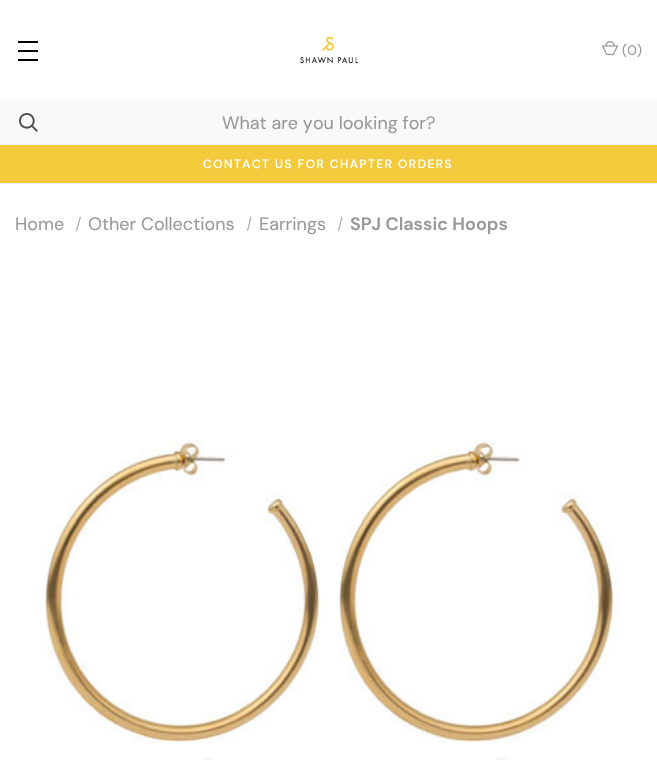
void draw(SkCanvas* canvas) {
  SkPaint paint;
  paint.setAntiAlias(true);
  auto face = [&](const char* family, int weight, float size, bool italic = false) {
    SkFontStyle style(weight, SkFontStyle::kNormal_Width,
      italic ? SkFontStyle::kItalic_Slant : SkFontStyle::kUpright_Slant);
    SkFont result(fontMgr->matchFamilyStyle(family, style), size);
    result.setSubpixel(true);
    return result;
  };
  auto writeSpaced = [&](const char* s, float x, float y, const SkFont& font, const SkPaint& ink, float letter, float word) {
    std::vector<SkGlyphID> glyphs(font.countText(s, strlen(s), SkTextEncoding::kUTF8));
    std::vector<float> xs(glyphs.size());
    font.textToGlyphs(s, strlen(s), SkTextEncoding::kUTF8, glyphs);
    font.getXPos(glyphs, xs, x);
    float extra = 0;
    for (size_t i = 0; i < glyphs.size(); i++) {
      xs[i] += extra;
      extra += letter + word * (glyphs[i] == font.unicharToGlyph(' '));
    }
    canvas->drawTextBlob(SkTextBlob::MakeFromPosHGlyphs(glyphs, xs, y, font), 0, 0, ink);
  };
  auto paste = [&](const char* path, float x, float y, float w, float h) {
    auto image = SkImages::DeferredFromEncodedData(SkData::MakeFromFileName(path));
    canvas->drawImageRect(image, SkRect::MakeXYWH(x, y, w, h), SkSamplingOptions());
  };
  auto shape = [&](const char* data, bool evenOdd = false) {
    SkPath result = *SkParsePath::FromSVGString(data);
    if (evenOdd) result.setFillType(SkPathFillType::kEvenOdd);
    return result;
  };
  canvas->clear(0xffffffff);
  {
    const struct { float x, y, w, h; SkColor color; } items[] = {
      {0, 183, 657, 1, 0xffebebeb},
      {18, 50, 20, 2, 0xff000000},
      {18, 41, 20, 2, 0xff000000},
      {18, 59, 20, 2, 0xff000000},
    };
    for (auto [x, y, w, h, color] : items) {
      paint.setColor(color);
      canvas->drawRect(SkRect::MakeXYWH(x, y, w, h), paint);
    }
  }
  paste("img/1.png", 299, 36, 59, 28);
  paste("img/2.png", 602, 41, 16, 15);
  paint.setColor(0xfff9f9f9);
  canvas->drawRect(SkRect::MakeXYWH(0, 101, 657, 43), paint);
  paste("img/3.png", 19, 113, 19, 19);
  {
    const struct { float x, y, w, h; SkColor color; } items[] = {
      {0, 100, 657, 1, 0xfff5f5f5},
      {0, 144, 657, 1, 0xfff5f5f5},
      {0, 145, 657, 38, 0xfff4ca3d},
    };
    for (auto [x, y, w, h, color] : items) {
      paint.setColor(color);
      canvas->drawRect(SkRect::MakeXYWH(x, y, w, h), paint);
    }
  }
  paint.setColor(0xffa3a3a3);
  canvas->drawPath(shape("M80 216.5L81 217L77 231L76 230.5Z"), paint);
  canvas->drawPath(shape("M250.5 216.5L251.5 217L248 231L247 230.5Z"), paint);
  canvas->drawPath(shape("M341.5 216.5L342.5 217L339 231L338 230.5Z"), paint);
  paste("img/4.png", 44, 440, 577, 320);
  auto f0 = face("DM Sans", 400, 14);
  paint.setColor(0xff989898);
  canvas->drawString("(0)", 622, 55, f0, paint);
  auto f1 = face("DM Sans", 400, 18);
  canvas->drawString("What are you looking for?", 222, 129, f1, paint);
  auto f2 = face("DM Sans", 500, 12);
  paint.setColor(0xffffffff);
  writeSpaced("CONTACT US FOR CHAPTER ORDERS", 203, 168, f2, paint, 1.5f, 0);
  paint.setColor(0xff989898);
  {
    const struct { const char* s; float x, y; } items[] = {
      {"Home", 15, 230},
      {"Other Collections", 88, 230},
      {"Earrings", 259, 230},
    };
    for (auto [s, x, y] : items) {
      canvas->drawString(s, x, y, f1, paint);
    }
  }
  auto f3 = face("DM Sans", 600, 18);
  canvas->drawString("SPJ Classic Hoops", 350, 230, f3, paint);
}
